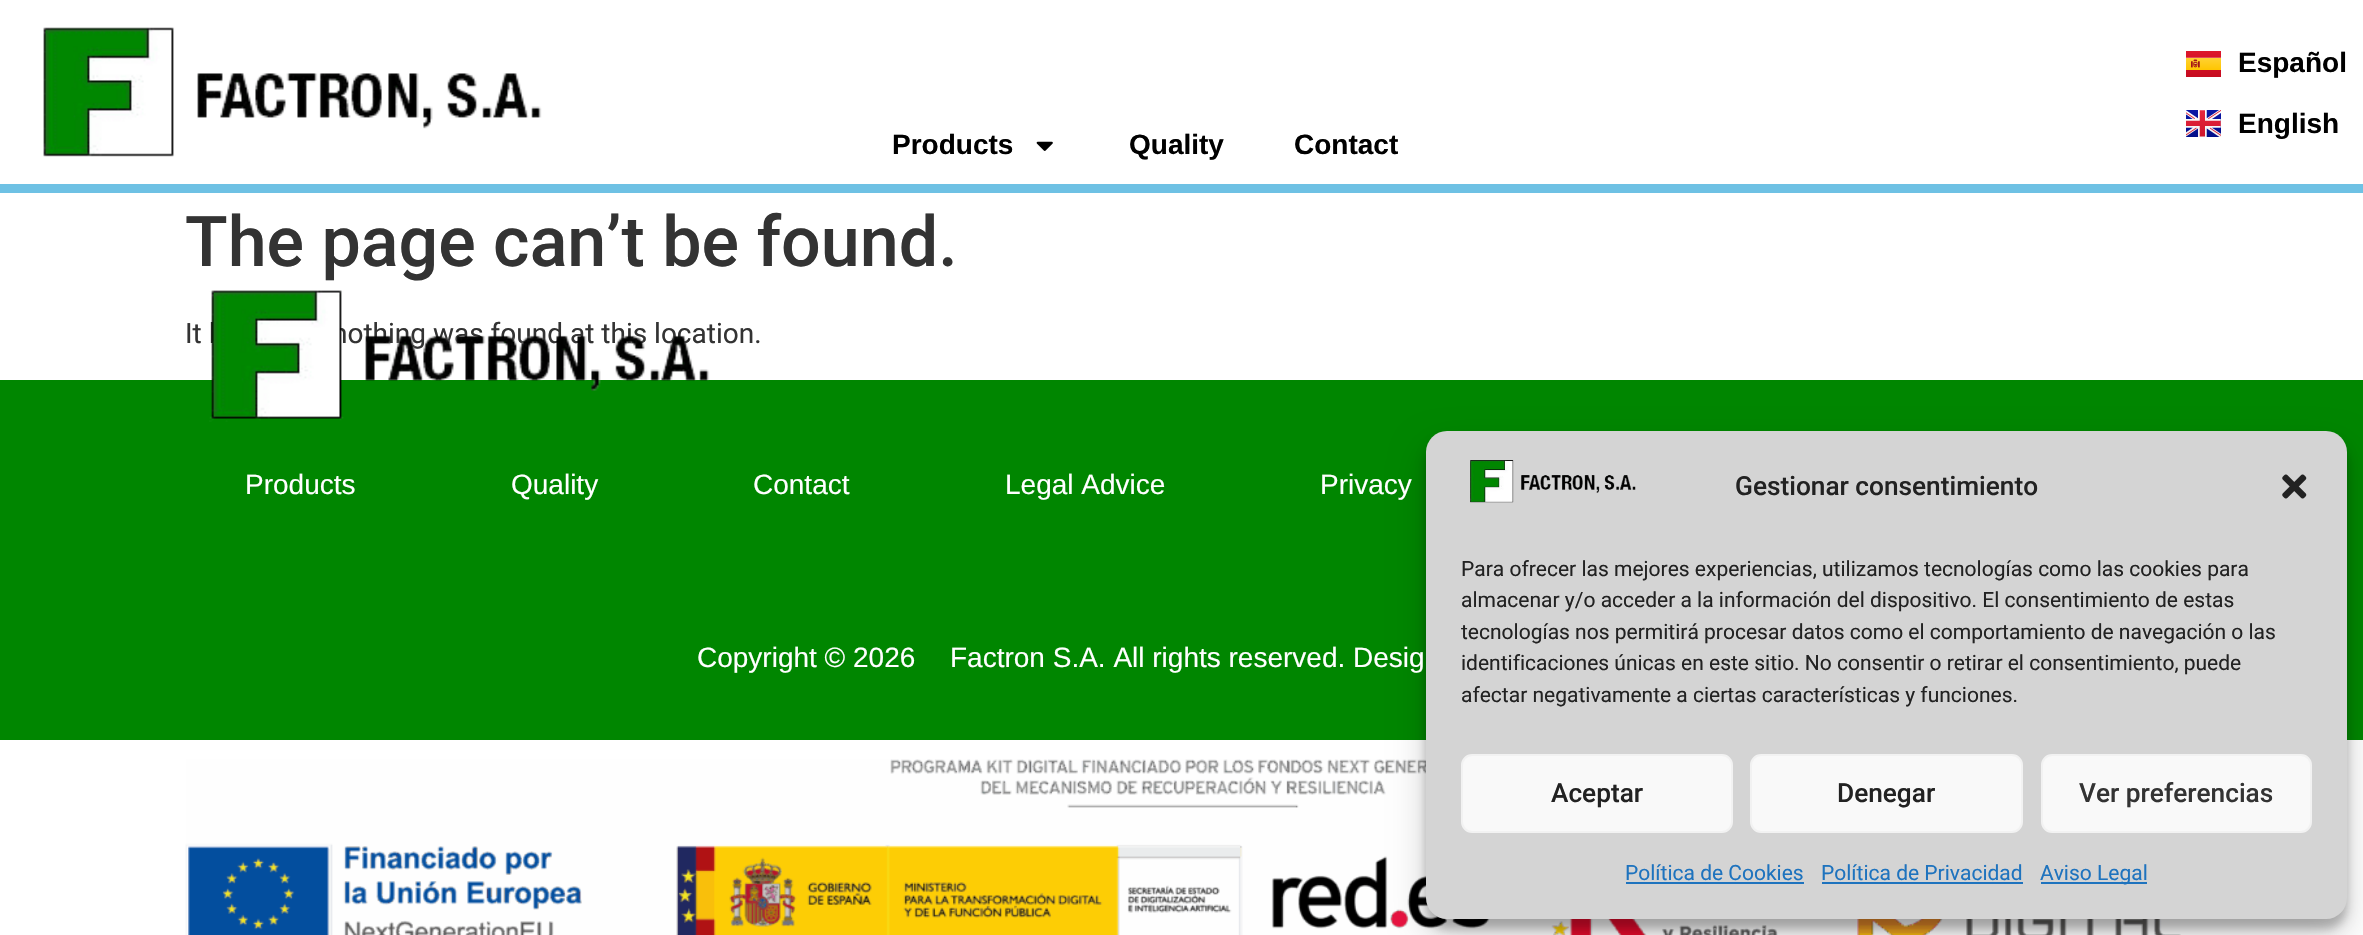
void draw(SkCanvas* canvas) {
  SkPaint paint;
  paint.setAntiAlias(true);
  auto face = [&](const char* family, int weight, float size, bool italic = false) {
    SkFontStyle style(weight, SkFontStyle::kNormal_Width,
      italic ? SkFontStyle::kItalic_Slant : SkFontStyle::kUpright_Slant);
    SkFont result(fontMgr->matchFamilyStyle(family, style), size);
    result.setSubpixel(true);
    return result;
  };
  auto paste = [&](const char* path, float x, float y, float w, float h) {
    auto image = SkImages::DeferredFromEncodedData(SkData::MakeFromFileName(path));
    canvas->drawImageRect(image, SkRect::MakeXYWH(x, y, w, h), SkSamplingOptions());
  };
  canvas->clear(0xffffffff);
  paint.setColor(0xff6ec1e4);
  canvas->drawRect(SkRect::MakeXYWH(0, 184, 2363, 9), paint);
  paste("img/1.png", 43, 27, 499, 130);
  paste("img/2.png", 2186, 51, 35, 26);
  paste("img/3.png", 2186, 110, 35, 27);
  paste("img/4.png", 1036, 141, 17, 10);
  paint.setColor(0xff008600);
  canvas->drawRect(SkRect::MakeXYWH(0, 380, 2363, 360), paint);
  paste("img/6.png", 185, 759, 1996, 176);
  paint.setColor(0x3b000000);
  paint.setMaskFilter(SkMaskFilter::MakeBlur(kNormal_SkBlurStyle, 5));
  canvas->drawRoundRect(SkRect::MakeXYWH(1426, 441, 921, 488), 21, 21, paint);
  paint.setMaskFilter(nullptr);
  paint.setColor(0x30000000);
  paint.setMaskFilter(SkMaskFilter::MakeBlur(kNormal_SkBlurStyle, 17.5f));
  canvas->drawRoundRect(SkRect::MakeXYWH(1426, 448, 921, 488), 21, 21, paint);
  paint.setMaskFilter(nullptr);
  paint.setColor(0xffd4d4d4);
  canvas->drawRoundRect(SkRect::MakeXYWH(1426, 431, 921, 488), 21, 21, paint);
  paste("img/7.png", 1470, 460, 166, 43);
  paste("img/8.png", 2282, 474, 25, 25);
  paint.setColor(0xfff9f9f9);
  canvas->drawRoundRect(SkRect::MakeXYWH(1462, 755, 270, 77), 10, 10, paint);
  paint.setStroke(true);
  paint.setStrokeWidth(2);
  paint.setColor(0xfff2f2f2);
  canvas->drawRoundRect(SkRect::MakeXYWH(1462, 755, 270, 77), 10, 10, paint);
  paint.setStroke(false);
  paint.setColor(0xfff9f9f9);
  canvas->drawRoundRect(SkRect::MakeXYWH(1751, 755, 271, 77), 10, 10, paint);
  paint.setStroke(true);
  paint.setColor(0xfff2f2f2);
  canvas->drawRoundRect(SkRect::MakeXYWH(1751, 755, 271, 77), 10, 10, paint);
  paint.setStroke(false);
  paint.setColor(0xfff9f9f9);
  canvas->drawRoundRect(SkRect::MakeXYWH(2042, 755, 269, 77), 10, 10, paint);
  paint.setStroke(true);
  paint.setColor(0xfff2f2f2);
  canvas->drawRoundRect(SkRect::MakeXYWH(2042, 755, 269, 77), 10, 10, paint);
  paint.setStroke(false);
  {
    const struct { float x, y, w, h; SkColor color; } items[] = {
      {1626, 882, 178, 2, 0xff1e73be},
      {1822, 882, 201, 2, 0xff1e73be},
      {2041, 882, 106, 2, 0xff1e73be},
    };
    for (auto [x, y, w, h, color] : items) {
      paint.setColor(color);
      canvas->drawRect(SkRect::MakeXYWH(x, y, w, h), paint);
    }
  }
  auto f0 = face("Liberation Sans", 700, 28);
  paint.setColor(0xff000000);
  {
    const struct { const char* s; float x, y; } items[] = {
      {"Español", 2238, 72},
      {"English", 2238, 133},
      {"Products", 892, 154},
      {"Quality", 1129, 154},
      {"Contact", 1294, 154},
    };
    for (auto [s, x, y] : items) {
      canvas->drawString(s, x, y, f0, paint);
    }
  }
  auto f1 = face("Roboto", 500, 70);
  paint.setColor(0xff333333);
  canvas->drawString("The page can’t be found.", 185, 266, f1, paint);
  auto f2 = face("Roboto", 400, 28);
  canvas->drawString("It l", 185, 343, f2, paint);
  canvas->drawString("nothing was found at this location.", 332, 343, f2, paint);
  paste("img/5.png", 209, 290, 501, 132);
  auto f3 = face("Liberation Sans", 400, 28);
  paint.setColor(0xffffffff);
  {
    const struct { const char* s; float x, y; } items[] = {
      {"Products", 245, 494},
      {"Quality", 511, 494},
      {"Contact", 753, 494},
      {"Legal Advice", 1005, 494},
      {"Privacy", 1320, 494},
      {"Copyright © 2026", 697, 667},
      {"Factron S.A. All rights reserved. Desig", 950, 667},
    };
    for (auto [s, x, y] : items) {
      canvas->drawString(s, x, y, f3, paint);
    }
  }
  auto f4 = face("Roboto", 500, 26.25f);
  paint.setColor(0xff222222);
  canvas->drawString("Gestionar consentimiento", 1735, 495, f4, paint);
  auto f5 = face("Roboto", 400, 21);
  {
    const struct { const char* s; float x, y; } items[] = {
      {"Para ofrecer las mejores experiencias, utilizamos tecnologías como las cookies para", 1461, 576},
      {"almacenar y/o acceder a la información del dispositivo. El consentimiento de estas", 1461, 607},
      {"tecnologías nos permitirá procesar datos como el comportamiento de navegación o las", 1461, 639},
      {"identificaciones únicas en este sitio. No consentir o retirar el consentimiento, puede", 1461, 670},
      {"afectar negativamente a ciertas características y funciones.", 1461, 702},
    };
    for (auto [s, x, y] : items) {
      canvas->drawString(s, x, y, f5, paint);
    }
  }
  canvas->drawString("Aceptar", 1551, 802, f4, paint);
  canvas->drawString("Denegar", 1837, 802, f4, paint);
  paint.setColor(0xff333333);
  canvas->drawString("Ver preferencias", 2079, 802, f4, paint);
  paint.setColor(0xff1e73be);
  {
    const struct { const char* s; float x, y; } items[] = {
      {"Política de Cookies", 1625, 880},
      {"Política de Privacidad", 1821, 880},
      {"Aviso Legal", 2040, 880},
    };
    for (auto [s, x, y] : items) {
      canvas->drawString(s, x, y, f5, paint);
    }
  }
}
